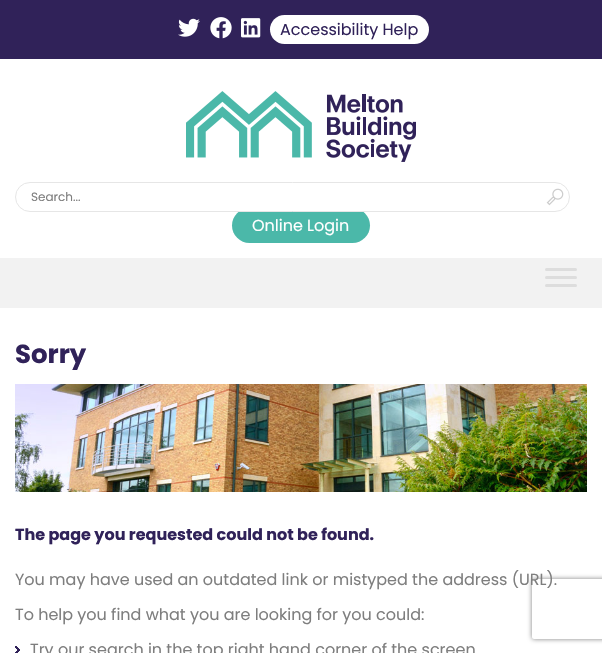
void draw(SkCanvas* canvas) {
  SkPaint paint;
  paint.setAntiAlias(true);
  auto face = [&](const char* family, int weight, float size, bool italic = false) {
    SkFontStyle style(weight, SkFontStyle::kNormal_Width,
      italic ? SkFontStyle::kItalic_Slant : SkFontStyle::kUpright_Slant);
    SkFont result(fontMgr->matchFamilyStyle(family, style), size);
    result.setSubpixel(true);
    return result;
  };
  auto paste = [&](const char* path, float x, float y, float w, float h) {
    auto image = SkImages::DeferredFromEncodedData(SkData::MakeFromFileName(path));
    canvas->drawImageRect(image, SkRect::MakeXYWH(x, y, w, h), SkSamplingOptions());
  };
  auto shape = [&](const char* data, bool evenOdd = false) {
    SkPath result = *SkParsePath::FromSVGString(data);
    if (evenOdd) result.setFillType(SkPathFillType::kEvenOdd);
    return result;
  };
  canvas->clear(0xffffffff);
  paint.setColor(0xff302259);
  canvas->drawRect(SkRect::MakeXYWH(0, 0, 602, 59), paint);
  paste("img/1.png", 178, 18, 22, 19);
  paste("img/2.png", 210, 17, 22, 22);
  paste("img/3.png", 241, 18, 20, 20);
  paint.setColor(0xffffffff);
  canvas->drawRoundRect(SkRect::MakeXYWH(270, 15, 159, 29), 14.5f, 14.5f, paint);
  paste("img/4.png", 186, 91, 230, 71);
  paint.setColor(0xff4bb8a9);
  canvas->drawRoundRect(SkRect::MakeXYWH(232, 208, 138, 35), 17.5f, 17.5f, paint);
  paint.setColor(0xffffffff);
  canvas->drawRoundRect(SkRect::MakeXYWH(15.5f, 182.5f, 554, 29), 14.5f, 14.5f, paint);
  paint.setStroke(true);
  paint.setStrokeWidth(1);
  paint.setColor(0xffe6e6e6);
  canvas->drawRoundRect(SkRect::MakeXYWH(15.5f, 182.5f, 554, 29), 14.5f, 14.5f, paint);
  paste("img/5.png", 546, 188, 18, 18);
  paint.setStroke(false);
  paint.setColor(0xfff2f2f2);
  canvas->drawRect(SkRect::MakeXYWH(0, 258, 602, 50), paint);
  paint.setColor(0xffdddddd);
  canvas->drawRoundRect(SkRect::MakeXYWH(545, 268, 32, 3), 1.5f, 1.5f, paint);
  canvas->drawRoundRect(SkRect::MakeXYWH(545, 276, 32, 3), 1.5f, 1.5f, paint);
  canvas->drawRoundRect(SkRect::MakeXYWH(545, 284, 32, 3), 1.5f, 1.5f, paint);
  paste("img/6.png", 15, 384, 572, 108);
  paste("img/7.png", 15, 646, 5, 7);
  canvas->save();
  canvas->clipPath(shape("M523 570H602V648H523ZM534 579H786C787 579 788 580 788 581V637C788 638 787 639 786 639H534C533 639 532 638 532 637V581C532 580 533 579 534 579Z", true), true);
  paint.setColor(0xff808080);
  paint.setMaskFilter(SkMaskFilter::MakeBlur(kNormal_SkBlurStyle, 2.5f));
  canvas->drawRoundRect(SkRect::MakeXYWH(532, 579, 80, 60), 2, 2, paint);
  paint.setMaskFilter(nullptr);
  canvas->restore();
  auto f0 = face("Poppins", 400, 16);
  paint.setColor(0xff302259);
  canvas->drawString("Accessibility Help", 280, 35, f0, paint);
  auto f1 = face("Poppins", 400, 12);
  paint.setColor(0xff7e7e7e);
  canvas->drawString("Search...", 31, 201, f1, paint);
  paint.setColor(0xffffffff);
  canvas->drawString("Online Login", 252, 231, f0, paint);
  auto f2 = face("Poppins", 700, 26);
  paint.setColor(0xff302259);
  canvas->drawString("Sorry", 15, 363, f2, paint);
  auto f3 = face("Poppins", 700, 16);
  canvas->drawString("The page you requested could not be found.", 15, 540, f3, paint);
  paint.setColor(0xff7e7e7e);
  {
    const struct { const char* s; float x, y; } items[] = {
      {"You may have used an outdated link or mistyped the address (URL).", 15, 585},
      {"To help you find what you are looking for you could:", 15, 620},
      {"Try our search in the top right hand corner of the screen", 30, 655},
    };
    for (auto [s, x, y] : items) {
      canvas->drawString(s, x, y, f0, paint);
    }
  }
}
